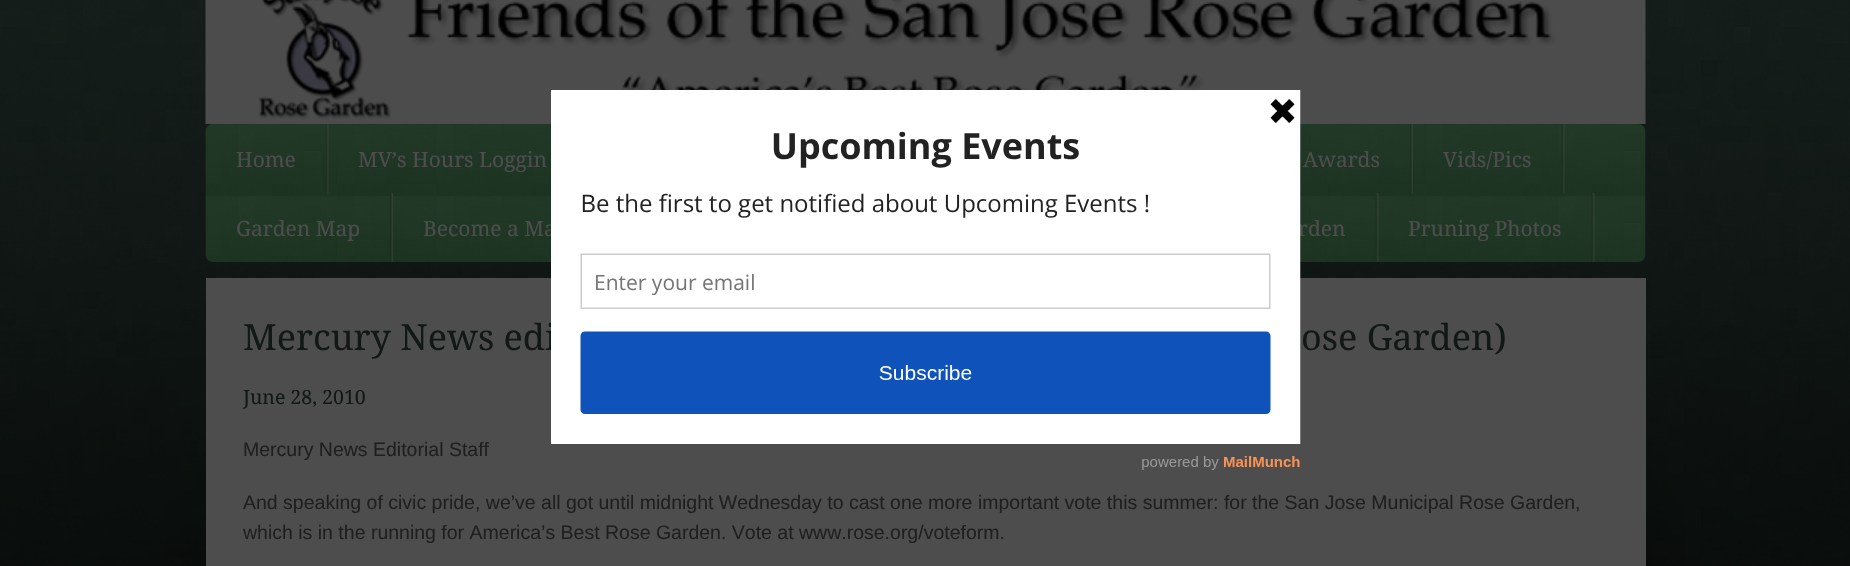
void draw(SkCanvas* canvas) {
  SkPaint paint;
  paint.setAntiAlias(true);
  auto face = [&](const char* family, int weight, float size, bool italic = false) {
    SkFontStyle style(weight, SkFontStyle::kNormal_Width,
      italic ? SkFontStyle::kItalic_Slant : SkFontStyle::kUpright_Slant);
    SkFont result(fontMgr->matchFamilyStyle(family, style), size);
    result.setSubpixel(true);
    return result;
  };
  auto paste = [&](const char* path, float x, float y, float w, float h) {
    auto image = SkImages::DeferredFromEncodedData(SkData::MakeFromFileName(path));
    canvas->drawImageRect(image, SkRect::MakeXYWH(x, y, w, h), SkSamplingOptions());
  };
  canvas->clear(0xffffffff);
  paste("img/2.png", 0, 0, 1850, 566);
  paste("img/3.png", 205, 0, 1441, 124);
  paste("img/4.png", 205, 124, 1441, 138);
  paste("img/5.png", 325, 124, 4, 69);
  paste("img/6.png", 1410, 124, 3, 69);
  paste("img/7.png", 1561, 124, 4, 69);
  paste("img/8.png", 390, 193, 3, 69);
  paste("img/9.png", 1375, 193, 4, 69);
  paste("img/10.png", 1591, 193, 4, 69);
  paste("img/11.png", 166, 363, 1519, 203);
  paint.setColor(0xff4d4d4d);
  canvas->drawRect(SkRect::MakeXYWH(206, 278, 1440, 288), paint);
  auto f0 = face("Droid Serif", 400, 21);
  {
    const struct { const char* s; float x, y; } items[] = {
      {"Home", 236, 167},
      {"MV’s Hours Loggin", 358, 167},
      {"Awards", 1303, 167},
      {"Vids/Pics", 1443, 167},
      {"Garden Map", 236, 236},
      {"Become a Ma", 423, 236},
      {"rden", 1298, 236},
      {"Pruning Photos", 1408, 236},
    };
    for (auto [s, x, y] : items) {
      canvas->drawString(s, x, y, f0, paint);
    }
  }
  auto f1 = face("Droid Serif", 400, 36);
  paint.setColor(0xff121816);
  canvas->drawString("Mercury News edi", 243, 350, f1, paint);
  paste("img/1.png", 551, 90, 750, 380);
  canvas->drawString("ose Garden)", 1301, 350, f1, paint);
  auto f2 = face("Droid Serif", 400, 19.5f);
  canvas->drawString("June 28, 2010", 243, 404, f2, paint);
  auto f3 = face("Liberation Sans", 400, 19.5f);
  paint.setColor(0xff1f1f1f);
  {
    const struct { const char* s; float x, y; } items[] = {
      {"Mercury News Editorial Staff", 243, 456},
      {"And speaking of civic pride, we’ve all got until midnight Wednesday to cast one more important vote this summer: for the San Jose Municipal Rose Garden,", 243, 509},
      {"which is in the running for America’s Best Rose Garden. Vote at www.rose.org/voteform.", 243, 539},
    };
    for (auto [s, x, y] : items) {
      canvas->drawString(s, x, y, f3, paint);
    }
  }
}
